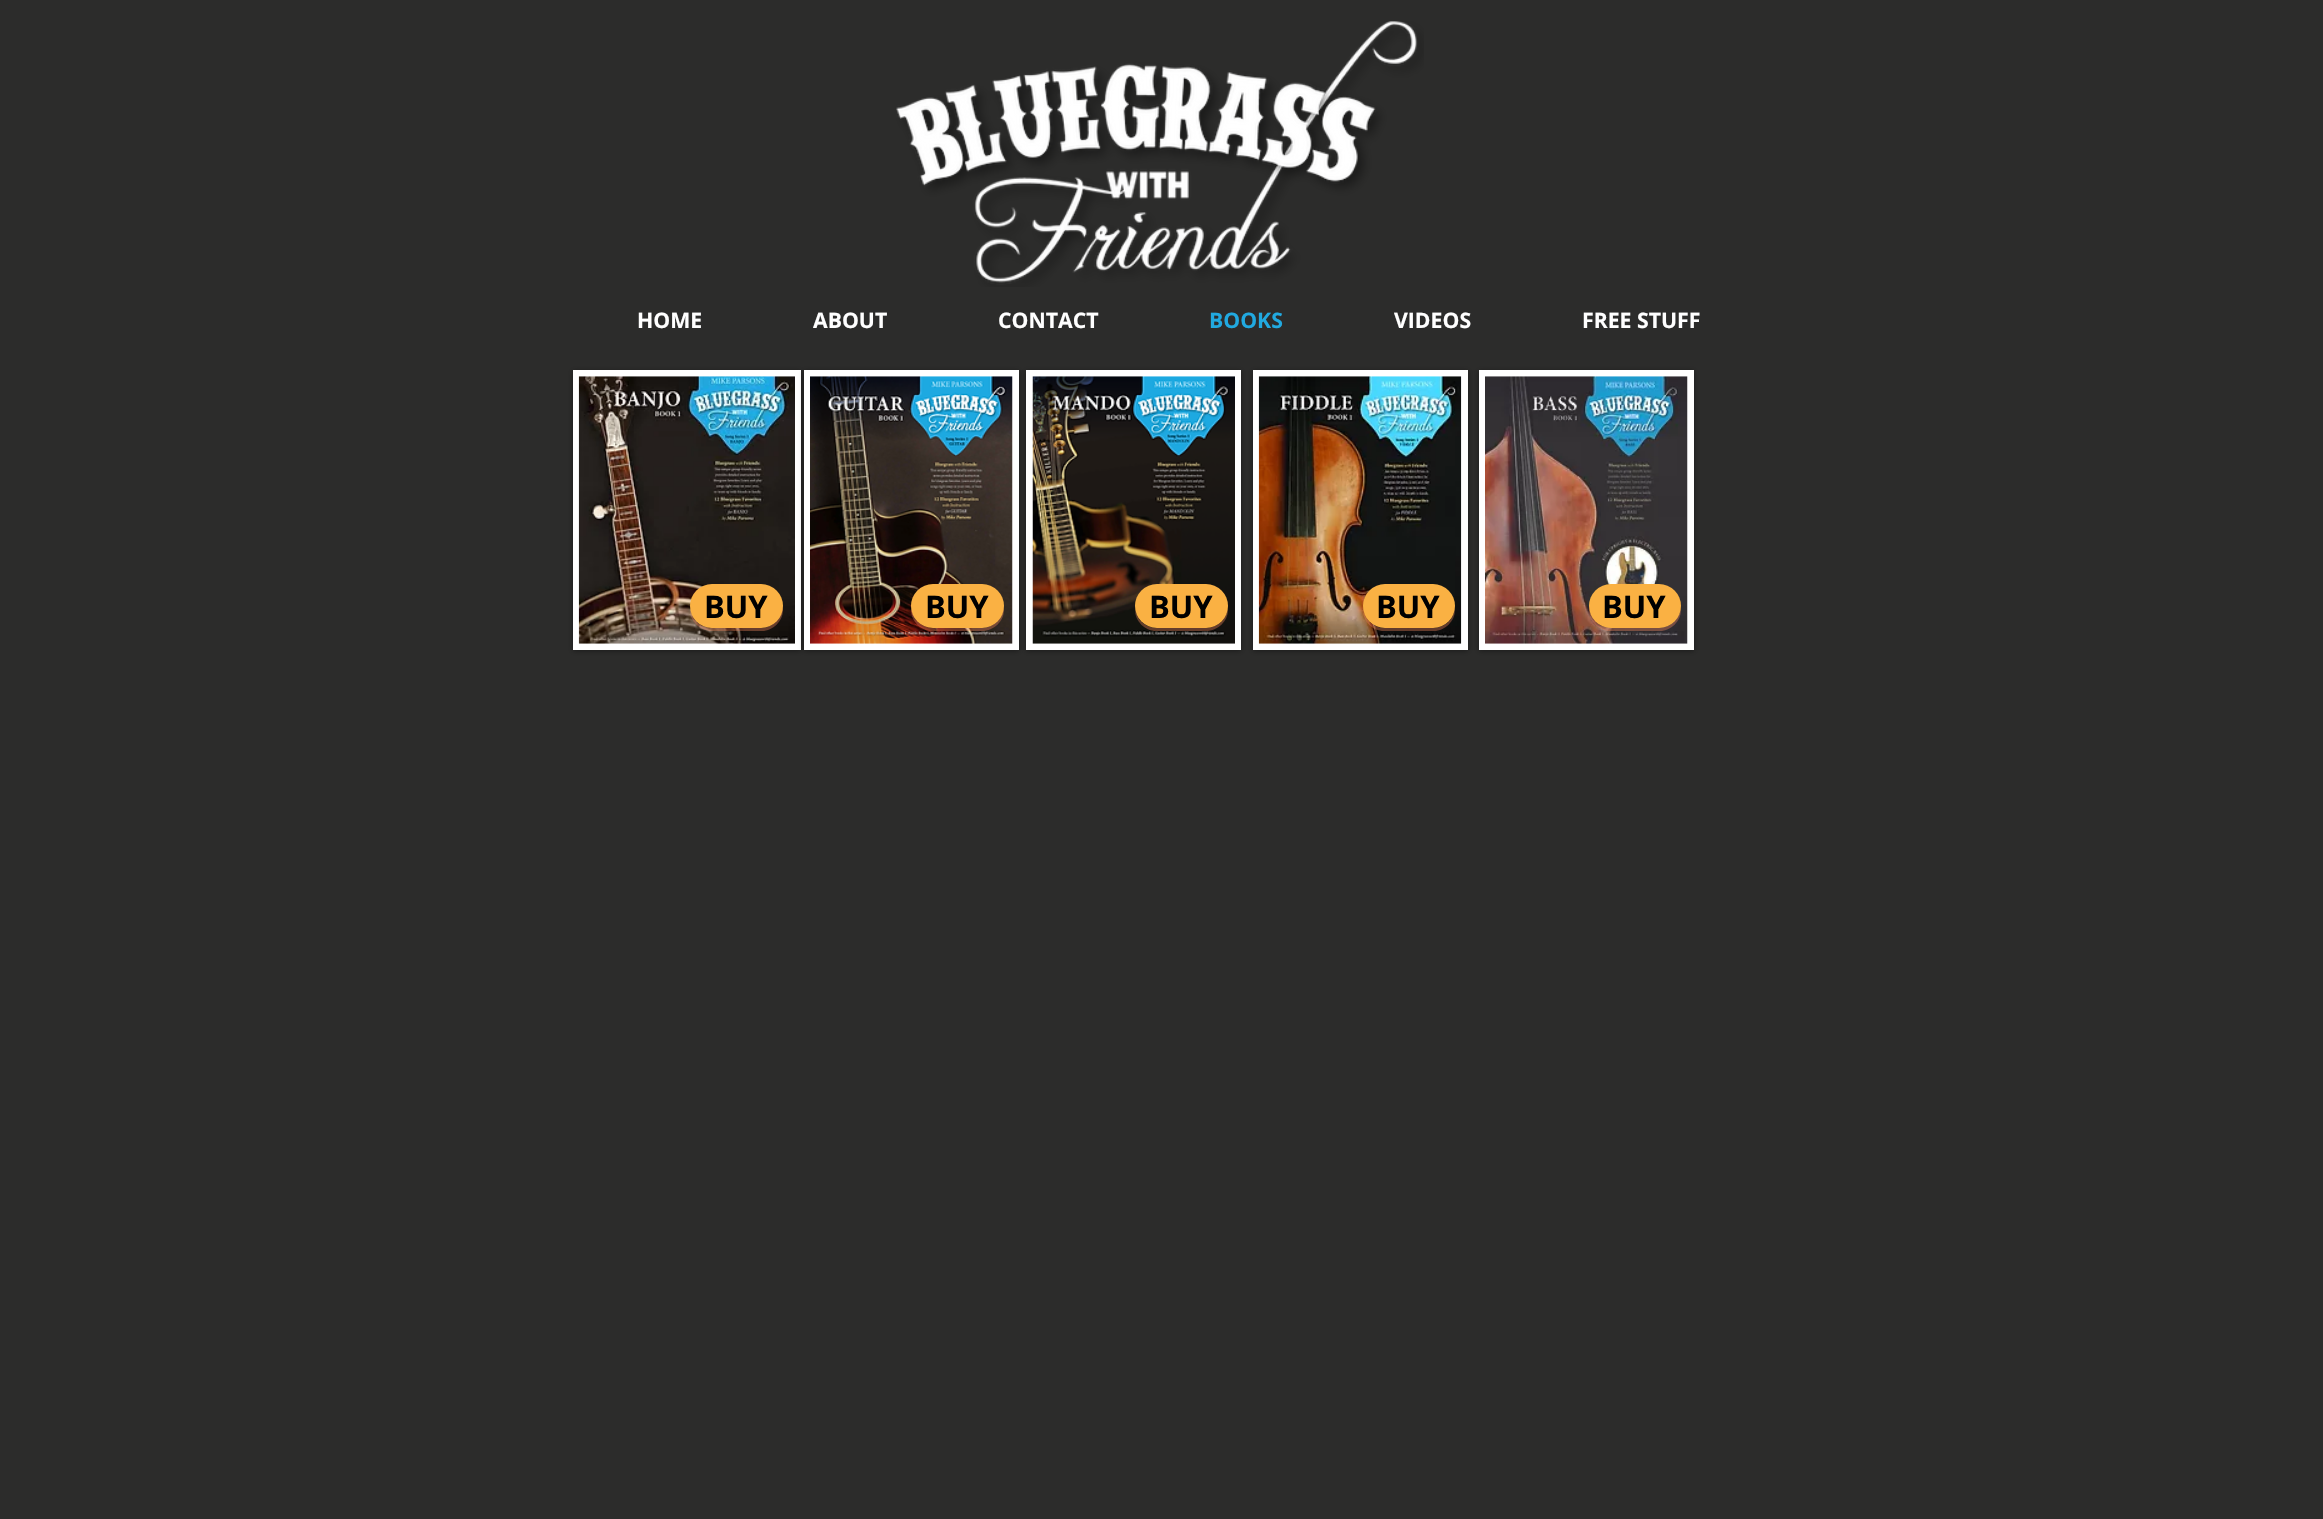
void draw(SkCanvas* canvas) {
  SkPaint paint;
  paint.setAntiAlias(true);
  auto face = [&](const char* family, int weight, float size, bool italic = false) {
    SkFontStyle style(weight, SkFontStyle::kNormal_Width,
      italic ? SkFontStyle::kItalic_Slant : SkFontStyle::kUpright_Slant);
    SkFont result(fontMgr->matchFamilyStyle(family, style), size);
    result.setSubpixel(true);
    return result;
  };
  auto paste = [&](const char* path, float x, float y, float w, float h) {
    auto image = SkImages::DeferredFromEncodedData(SkData::MakeFromFileName(path));
    canvas->drawImageRect(image, SkRect::MakeXYWH(x, y, w, h), SkSamplingOptions());
  };
  auto shape = [&](const char* data, bool evenOdd = false) {
    SkPath result = *SkParsePath::FromSVGString(data);
    if (evenOdd) result.setFillType(SkPathFillType::kEvenOdd);
    return result;
  };
  canvas->clear(0xff2c2c2b);
  paste("img/1.png", 896, 21, 528, 266);
  paint.setColor(0x66000000);
  paint.setMaskFilter(SkMaskFilter::MakeBlur(kNormal_SkBlurStyle, 2.5f));
  canvas->drawRect(SkRect::MakeXYWH(573, 371, 228, 280), paint);
  paint.setMaskFilter(nullptr);
  paint.setColor(0xffffffff);
  canvas->drawRect(SkRect::MakeXYWH(573, 370, 228, 280), paint);
  paste("img/2.png", 578, 376, 217, 268);
  paint.setColor(0x66000000);
  paint.setMaskFilter(SkMaskFilter::MakeBlur(kNormal_SkBlurStyle, 2.5f));
  canvas->drawRect(SkRect::MakeXYWH(804, 371, 215, 280), paint);
  paint.setMaskFilter(nullptr);
  paint.setColor(0xffffffff);
  canvas->drawRect(SkRect::MakeXYWH(804, 370, 215, 280), paint);
  paste("img/3.png", 810, 376, 203, 268);
  paint.setColor(0x66000000);
  paint.setMaskFilter(SkMaskFilter::MakeBlur(kNormal_SkBlurStyle, 2.5f));
  canvas->drawRect(SkRect::MakeXYWH(1026, 371, 215, 280), paint);
  paint.setMaskFilter(nullptr);
  paint.setColor(0xffffffff);
  canvas->drawRect(SkRect::MakeXYWH(1026, 370, 215, 280), paint);
  paste("img/4.png", 1032, 376, 203, 268);
  paint.setColor(0x66000000);
  paint.setMaskFilter(SkMaskFilter::MakeBlur(kNormal_SkBlurStyle, 2.5f));
  canvas->drawRect(SkRect::MakeXYWH(1253, 371, 215, 280), paint);
  paint.setMaskFilter(nullptr);
  paint.setColor(0xffffffff);
  canvas->drawRect(SkRect::MakeXYWH(1253, 370, 215, 280), paint);
  paste("img/5.png", 1258, 376, 204, 268);
  paint.setColor(0x66000000);
  paint.setMaskFilter(SkMaskFilter::MakeBlur(kNormal_SkBlurStyle, 2.5f));
  canvas->drawRect(SkRect::MakeXYWH(1479, 371, 215, 280), paint);
  paint.setMaskFilter(nullptr);
  paint.setColor(0xffffffff);
  canvas->drawRect(SkRect::MakeXYWH(1479, 370, 215, 280), paint);
  paste("img/6.png", 1485, 376, 203, 268);
  paint.setColor(0x59ff8c62);
  canvas->drawPath(shape("M690 608V610C690 621 700 631 712 631H762C773 631 783 621 783 610L782 605V606C782 618 773 628 761 628H712C700 628 691 619 690 608Z"), paint);
  paint.setColor(0xfffab143);
  canvas->drawRoundRect(SkRect::MakeXYWH(690, 584, 93, 44), 22, 22, paint);
  paint.setColor(0x59ff8c62);
  canvas->drawPath(shape("M911 606V610C911 621 921 631 932 631H982C994 631 1004 621 1004 610V606C1003 618 994 628 982 628H933C921 628 912 618 911 606Z"), paint);
  paint.setColor(0xfffab143);
  canvas->drawRoundRect(SkRect::MakeXYWH(911, 584, 93, 44), 22, 22, paint);
  paint.setColor(0x59ff8c62);
  canvas->drawPath(shape("M1135 608V610C1135 621 1145 631 1156 631H1206C1218 631 1228 621 1228 610L1227 605L1228 606C1228 618 1218 628 1206 628H1157C1145 628 1136 619 1135 608Z"), paint);
  paint.setColor(0xfffab143);
  canvas->drawRoundRect(SkRect::MakeXYWH(1135, 584, 93, 44), 22, 22, paint);
  paint.setColor(0x59ff8c62);
  canvas->drawPath(shape("M1363 610C1363 622 1373 631 1384 631H1434C1445 631 1455 621 1455 610V608C1454 619 1445 628 1433 628H1384C1374 628 1365 620 1363 610Z"), paint);
  paint.setColor(0xfffab143);
  canvas->drawRoundRect(SkRect::MakeXYWH(1363, 584, 92, 44), 22, 22, paint);
  paint.setColor(0x59ff8c62);
  canvas->drawPath(shape("M1589 609V610C1589 621 1599 631 1610 631H1660C1671 631 1681 621 1681 610V609C1679 619 1670 628 1659 628H1611C1600 628 1591 619 1589 609Z"), paint);
  paint.setColor(0xfffab143);
  canvas->drawRoundRect(SkRect::MakeXYWH(1589, 584, 92, 44), 22, 22, paint);
  auto f0 = face("Open Sans", 700, 21.25f);
  paint.setColor(0xffffffff);
  {
    const struct { const char* s; float x, y; } items[] = {
      {"HOME", 637, 328},
      {"ABOUT", 813, 328},
      {"CONTACT", 998, 328},
    };
    for (auto [s, x, y] : items) {
      canvas->drawString(s, x, y, f0, paint);
    }
  }
  paint.setColor(0xff21a9e0);
  canvas->drawString("BOOKS", 1209, 328, f0, paint);
  paint.setColor(0xffffffff);
  canvas->drawString("VIDEOS", 1394, 328, f0, paint);
  canvas->drawString("FREE STUFF", 1582, 328, f0, paint);
  auto f1 = face("Open Sans", 700, 31);
  paint.setColor(0xff000000);
  {
    const struct { const char* s; float x, y; } items[] = {
      {"BUY", 704, 618},
      {"BUY", 925, 618},
      {"BUY", 1149, 618},
      {"BUY", 1376, 618},
      {"BUY", 1602, 618},
    };
    for (auto [s, x, y] : items) {
      canvas->drawString(s, x, y, f1, paint);
    }
  }
}
